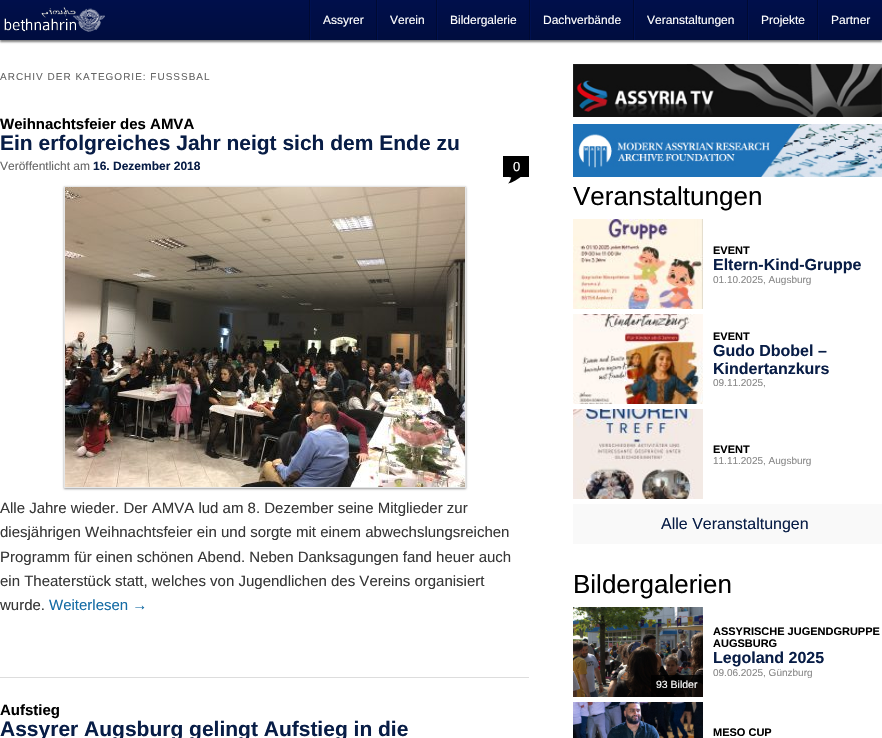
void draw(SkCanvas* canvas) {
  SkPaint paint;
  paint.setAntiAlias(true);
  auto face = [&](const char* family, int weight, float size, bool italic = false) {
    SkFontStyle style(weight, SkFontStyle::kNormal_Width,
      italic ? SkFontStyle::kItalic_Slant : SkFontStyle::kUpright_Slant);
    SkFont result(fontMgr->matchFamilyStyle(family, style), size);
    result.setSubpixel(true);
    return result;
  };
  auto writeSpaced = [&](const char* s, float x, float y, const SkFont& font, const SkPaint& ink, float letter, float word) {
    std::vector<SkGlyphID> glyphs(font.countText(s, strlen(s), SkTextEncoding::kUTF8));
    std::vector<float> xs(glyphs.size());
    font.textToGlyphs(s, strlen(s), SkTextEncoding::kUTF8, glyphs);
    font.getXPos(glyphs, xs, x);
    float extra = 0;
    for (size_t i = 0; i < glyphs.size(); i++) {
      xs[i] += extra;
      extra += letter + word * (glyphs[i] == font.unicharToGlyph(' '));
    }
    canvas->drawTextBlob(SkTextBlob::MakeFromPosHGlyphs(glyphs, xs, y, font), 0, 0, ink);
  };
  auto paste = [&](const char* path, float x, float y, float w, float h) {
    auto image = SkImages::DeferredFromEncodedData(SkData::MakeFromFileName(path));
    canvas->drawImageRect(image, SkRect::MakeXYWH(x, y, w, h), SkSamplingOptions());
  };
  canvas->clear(0xffffffff);
  paint.setColor(0x80000000);
  paint.setMaskFilter(SkMaskFilter::MakeBlur(kNormal_SkBlurStyle, 1));
  canvas->drawRect(SkRect::MakeXYWH(0, 2, 882, 40), paint);
  paint.setMaskFilter(nullptr);
  {
    const SkColor colors[] = {0xff000f4b, 0xff000d3f};
    const float stops[] = {0, 1};
    const SkPoint ends[] = {{441, 0}, {441, 40}};
    paint.setShader(SkGradientShader::MakeLinear(ends, colors, stops, 2, SkTileMode::kClamp));
    paint.setAlpha(255);
  }
  canvas->drawRect(SkRect::MakeXYWH(0, 0, 882, 40), paint);
  paste("img/1.png", 4, 7, 101, 25);
  paint.setShader(nullptr);
  {
    const struct { float x, y, w, h; SkColor color; } items[] = {
      {309, 0, 1, 40, 0xff000a32},
      {310, 0, 1, 40, 0xff001150},
      {376, 0, 1, 40, 0xff000a32},
      {377, 0, 1, 40, 0xff001150},
      {436, 0, 1, 40, 0xff000a32},
      {437, 0, 1, 40, 0xff001150},
      {529, 0, 1, 40, 0xff000a32},
      {530, 0, 1, 40, 0xff001150},
      {633, 0, 1, 40, 0xff000a32},
      {634, 0, 1, 40, 0xff001150},
      {747, 0, 1, 40, 0xff000a32},
      {748, 0, 1, 40, 0xff001150},
      {817, 0, 1, 40, 0xff000a32},
      {818, 0, 1, 40, 0xff001150},
      {0, 677, 529, 1, 0xffdddddd},
    };
    for (auto [x, y, w, h, color] : items) {
      paint.setColor(color);
      canvas->drawRect(SkRect::MakeXYWH(x, y, w, h), paint);
    }
  }
  paste("img/2.png", 503, 156, 26, 28);
  paint.setColor(0x66000000);
  paint.setMaskFilter(SkMaskFilter::MakeBlur(kNormal_SkBlurStyle, 1));
  canvas->drawRect(SkRect::MakeXYWH(64, 187, 402, 302), paint);
  paint.setMaskFilter(nullptr);
  paint.setStroke(true);
  paint.setStrokeWidth(1);
  paint.setColor(0xffe6e6e6);
  canvas->drawRect(SkRect::MakeXYWH(64.5f, 186.5f, 401, 301), paint);
  paste("img/3.png", 65, 187, 400, 300);
  paste("img/4.png", 573, 64, 309, 53);
  paste("img/5.png", 573, 124, 309, 53);
  paste("img/6.png", 573, 219, 130, 90);
  paste("img/7.png", 573, 314, 130, 90);
  paste("img/8.png", 573, 409, 130, 90);
  paint.setStroke(false);
  paint.setColor(0xfff9f9f9);
  canvas->drawRect(SkRect::MakeXYWH(573, 504, 309, 40), paint);
  paste("img/9.png", 573, 607, 130, 90);
  paint.setColor(0xcc000000);
  canvas->drawRect(SkRect::MakeXYWH(651, 675, 52, 22), paint);
  paste("img/10.png", 573, 702, 130, 36);
  auto f0 = face("Liberation Sans", 400, 12);
  paint.setColor(0xffffffff);
  {
    const struct { const char* s; float x, y; } items[] = {
      {"Assyrer", 323, 24},
      {"Verein", 390, 24},
      {"Bildergalerie", 450, 24},
      {"Dachverbände", 543, 24},
      {"Veranstaltungen", 647, 24},
      {"Projekte", 761, 24},
      {"Partner", 831, 24},
    };
    for (auto [s, x, y] : items) {
      canvas->drawString(s, x, y, f0, paint);
    }
  }
  auto f1 = face("Liberation Sans", 400, 10);
  paint.setColor(0xff666666);
  writeSpaced("ARCHIV DER KATEGORIE: FUSSSBAL", 0, 80, f1, paint, 1, 0);
  auto f2 = face("Liberation Sans", 700, 15);
  paint.setColor(0xff000000);
  canvas->drawString("Weihnachtsfeier des AMVA", 0, 129, f2, paint);
  auto f3 = face("Liberation Sans", 700, 21);
  paint.setColor(0xff081d46);
  canvas->drawString("Ein erfolgreiches Jahr neigt sich dem Ende zu", 0, 150, f3, paint);
  paint.setColor(0xff666666);
  canvas->drawString("Veröffentlicht am", 0, 170, f0, paint);
  auto f4 = face("Liberation Sans", 700, 12);
  paint.setColor(0xff081d46);
  canvas->drawString("16. Dezember 2018", 93, 170, f4, paint);
  auto f5 = face("Liberation Sans", 400, 13);
  paint.setColor(0xffffffff);
  canvas->drawString("0", 513, 171, f5, paint);
  auto f6 = face("Liberation Sans", 400, 15);
  paint.setColor(0xff373737);
  {
    const struct { const char* s; float x, y; } items[] = {
      {"Alle Jahre wieder. Der AMVA lud am 8. Dezember seine Mitglieder zur", 0, 513},
      {"diesjährigen Weihnachtsfeier ein und sorgte mit einem abwechslungsreichen", 0, 537},
      {"Programm für einen schönen Abend. Neben Danksagungen fand heuer auch", 0, 562},
      {"ein Theaterstück statt, welches von Jugendlichen des Vereins organisiert", 0, 586},
      {"wurde.", 0, 610},
    };
    for (auto [s, x, y] : items) {
      canvas->drawString(s, x, y, f6, paint);
    }
  }
  paint.setColor(0xff156ca5);
  canvas->drawString("Weiterlesen →", 49, 610, f6, paint);
  paint.setColor(0xff000000);
  canvas->drawString("Aufstieg", 0, 715, f2, paint);
  paint.setColor(0xff081d46);
  canvas->drawString("Assyrer Augsburg gelingt Aufstieg in die", 0, 736, f3, paint);
  auto f7 = face("Liberation Sans", 400, 26);
  paint.setColor(0xff000000);
  canvas->drawString("Veranstaltungen", 573, 205, f7, paint);
  auto f8 = face("Liberation Sans", 700, 11);
  canvas->drawString("EVENT", 713, 254, f8, paint);
  auto f9 = face("Liberation Sans", 700, 16);
  paint.setColor(0xff081d46);
  canvas->drawString("Eltern-Kind-Gruppe", 713, 270, f9, paint);
  paint.setColor(0xff888888);
  canvas->drawString("01.10.2025, Augsburg", 713, 283, f1, paint);
  paint.setColor(0xff000000);
  canvas->drawString("EVENT", 713, 340, f8, paint);
  paint.setColor(0xff081d46);
  canvas->drawString("Gudo Dbobel –", 713, 356, f9, paint);
  canvas->drawString("Kindertanzkurs", 713, 374, f9, paint);
  paint.setColor(0xff888888);
  canvas->drawString("09.11.2025,", 713, 386, f1, paint);
  paint.setColor(0xff000000);
  canvas->drawString("EVENT", 713, 453, f8, paint);
  paint.setColor(0xff888888);
  canvas->drawString("11.11.2025, Augsburg", 713, 464, f1, paint);
  auto f10 = face("Liberation Sans", 400, 16);
  paint.setColor(0xff081d46);
  canvas->drawString("Alle Veranstaltungen", 661, 529, f10, paint);
  paint.setColor(0xff000000);
  canvas->drawString("Bildergalerien", 573, 593, f7, paint);
  canvas->drawString("ASSYRISCHE JUGENDGRUPPE", 713, 635, f8, paint);
  canvas->drawString("AUGSBURG", 713, 647, f8, paint);
  paint.setColor(0xff081d46);
  canvas->drawString("Legoland 2025", 713, 663, f9, paint);
  paint.setColor(0xff888888);
  canvas->drawString("09.06.2025, Günzburg", 713, 676, f1, paint);
  auto f11 = face("Liberation Sans", 400, 10.5f);
  paint.setColor(0xffffffff);
  canvas->drawString("93 Bilder", 656, 688, f11, paint);
  paint.setColor(0xff000000);
  canvas->drawString("MESO CUP", 713, 736, f8, paint);
}
